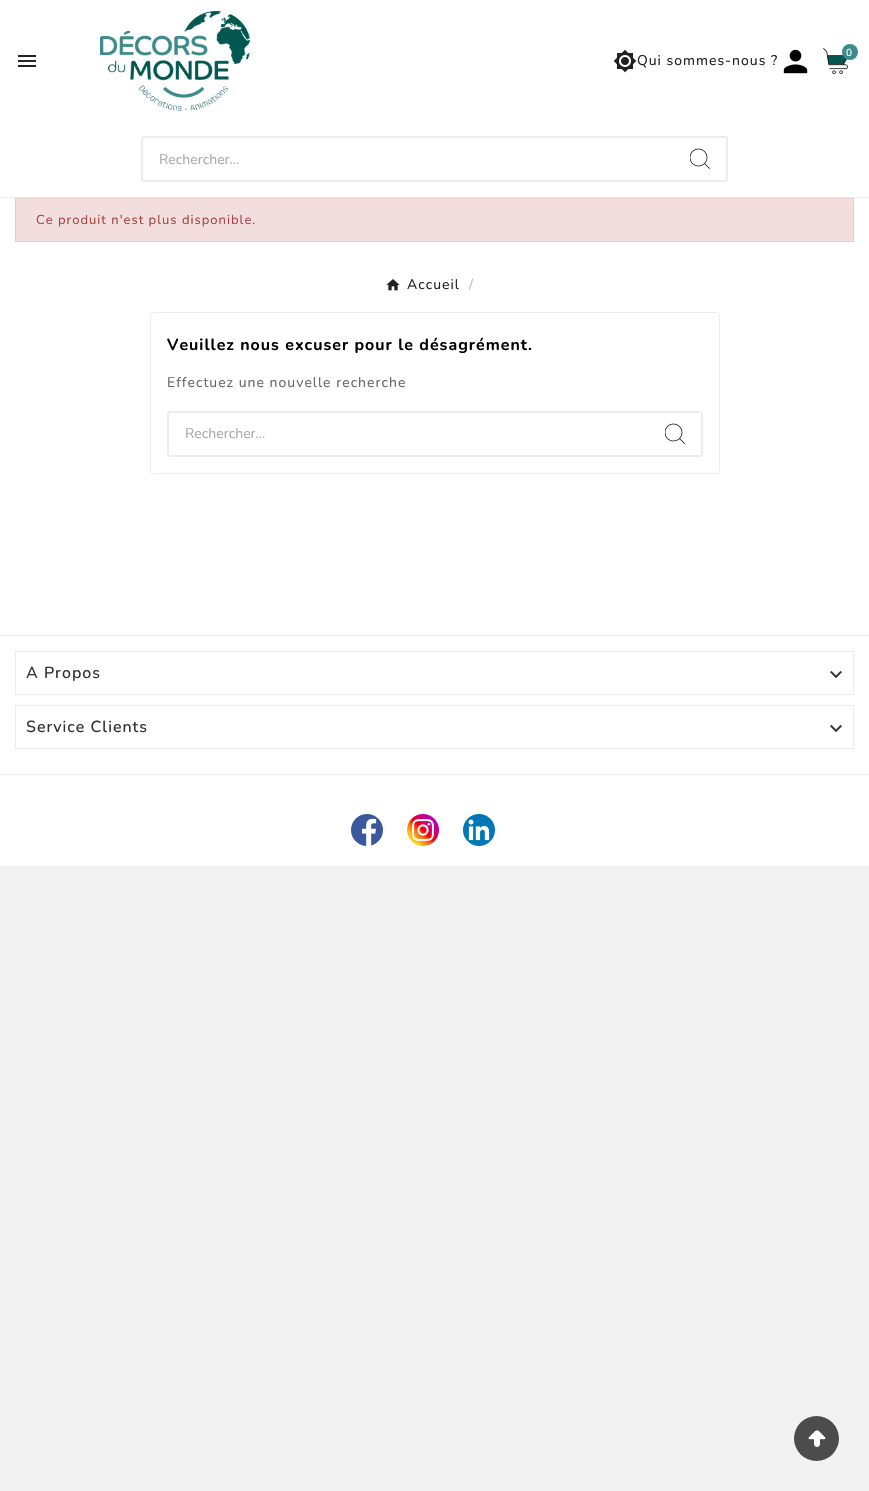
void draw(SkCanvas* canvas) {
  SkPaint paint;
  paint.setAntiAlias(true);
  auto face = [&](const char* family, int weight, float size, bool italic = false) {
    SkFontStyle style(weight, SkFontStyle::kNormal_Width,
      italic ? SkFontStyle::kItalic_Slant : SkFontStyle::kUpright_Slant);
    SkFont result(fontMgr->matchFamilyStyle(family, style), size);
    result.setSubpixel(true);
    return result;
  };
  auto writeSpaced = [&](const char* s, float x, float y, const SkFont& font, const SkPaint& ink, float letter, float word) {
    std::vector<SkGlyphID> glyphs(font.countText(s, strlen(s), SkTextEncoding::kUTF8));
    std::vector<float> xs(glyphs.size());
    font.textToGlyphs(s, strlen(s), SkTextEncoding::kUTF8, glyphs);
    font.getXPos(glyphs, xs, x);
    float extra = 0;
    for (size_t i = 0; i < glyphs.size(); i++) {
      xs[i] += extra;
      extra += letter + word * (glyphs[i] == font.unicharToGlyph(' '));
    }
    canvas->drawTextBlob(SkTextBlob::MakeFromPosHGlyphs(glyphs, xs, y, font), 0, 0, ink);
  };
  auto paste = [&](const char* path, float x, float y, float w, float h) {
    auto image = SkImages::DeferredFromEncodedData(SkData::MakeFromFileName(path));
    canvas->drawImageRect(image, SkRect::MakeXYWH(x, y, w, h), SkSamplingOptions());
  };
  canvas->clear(0xfff2f2f2);
  paint.setColor(0xffffffff);
  canvas->drawRect(SkRect::MakeXYWH(0, 0, 869, 866), paint);
  paint.setColor(0xffededed);
  canvas->drawRect(SkRect::MakeXYWH(0, 197, 869, 1), paint);
  paste("img/1.png", 18, 55, 18, 12);
  paste("img/2.png", 100, 11, 150, 100);
  paste("img/3.png", 613, 49, 24, 24);
  paste("img/4.png", 783, 49, 25, 25);
  paste("img/5.png", 823, 48, 25, 26);
  paint.setColor(0xff3e898a);
  canvas->drawCircle(850, 52, 8, paint);
  paint.setStroke(true);
  paint.setStrokeWidth(2);
  paint.setColor(0xffededed);
  canvas->drawRoundRect(SkRect::MakeXYWH(142, 137, 585, 44), 2, 2, paint);
  paint.setStroke(false);
  paint.setColor(0xffffffff);
  canvas->drawRect(SkRect::MakeXYWH(143, 138, 1, 42), paint);
  canvas->drawRect(SkRect::MakeXYWH(725, 138, 1, 42), paint);
  paste("img/6.png", 690, 148, 20, 21);
  paint.setColor(0xfff2dede);
  canvas->drawRect(SkRect::MakeXYWH(15.5f, 198.5f, 838, 43), paint);
  paint.setStroke(true);
  paint.setStrokeWidth(1);
  paint.setColor(0xffebcccc);
  canvas->drawRect(SkRect::MakeXYWH(15.5f, 198.5f, 838, 43), paint);
  paste("img/7.png", 386, 279, 14, 12);
  paint.setColor(0xffededed);
  canvas->drawRoundRect(SkRect::MakeXYWH(150.5f, 312.5f, 569, 161), 2.5f, 2.5f, paint);
  paint.setStrokeWidth(2);
  canvas->drawRoundRect(SkRect::MakeXYWH(168, 412, 534, 44), 2, 2, paint);
  paint.setStroke(false);
  paint.setColor(0xffffffff);
  canvas->drawRect(SkRect::MakeXYWH(169, 413, 1, 42), paint);
  canvas->drawRect(SkRect::MakeXYWH(700, 413, 1, 42), paint);
  paste("img/6.png", 665, 423, 20, 21);
  paint.setColor(0xffededed);
  canvas->drawRect(SkRect::MakeXYWH(0, 635, 869, 1), paint);
  paint.setStroke(true);
  paint.setStrokeWidth(1);
  canvas->drawRect(SkRect::MakeXYWH(15.5f, 651.5f, 838, 43), paint);
  paste("img/8.png", 830, 670, 12, 9);
  canvas->drawRect(SkRect::MakeXYWH(15.5f, 705.5f, 838, 43), paint);
  paste("img/8.png", 830, 724, 12, 9);
  paint.setStroke(false);
  paint.setColor(0xff4c4c4c);
  canvas->drawCircle(816.5f, 1438.5f, 22.5f, paint);
  paste("img/9.png", 808, 1430, 18, 17);
  paint.setColor(0xffededed);
  canvas->drawRect(SkRect::MakeXYWH(0, 774, 869, 1), paint);
  paste("img/10.png", 351, 814, 32, 32);
  paste("img/11.png", 407, 814, 32, 32);
  paste("img/12.png", 463, 814, 32, 32);
  auto f0 = face("Nunito", 400, 14);
  paint.setColor(0xff222222);
  writeSpaced("Qui sommes-nous ?", 637, 65, f0, paint, 1, 0);
  auto f1 = face("Nunito", 400, 10);
  paint.setColor(0xffffffff);
  writeSpaced("0", 846, 56, f1, paint, 1, 0);
  paint.setColor(0xffaaaaaa);
  canvas->drawString("Rechercher...", 159, 164, f0, paint);
  auto f2 = face("Nunito", 400, 13);
  paint.setColor(0xffa94442);
  writeSpaced("Ce produit n'est plus disponible.", 36, 224, f2, paint, 1, 0);
  paint.setColor(0xff222222);
  writeSpaced("Accueil", 407, 289, f0, paint, 1, 0);
  paint.setColor(0xffbdbdbd);
  writeSpaced("/", 469, 289, f0, paint, 1, 0);
  auto f3 = face("Nunito", 700, 16);
  paint.setColor(0xff000000);
  writeSpaced("Veuillez nous excuser pour le désagrément.", 167, 350, f3, paint, 1, 0);
  paint.setColor(0xff666666);
  writeSpaced("Effectuez une nouvelle recherche", 167, 387, f0, paint, 1, 0);
  paint.setColor(0xffaaaaaa);
  canvas->drawString("Rechercher...", 185, 438, f0, paint);
  auto f4 = face("Nunito", 500, 16);
  paint.setColor(0xff333333);
  writeSpaced("A Propos", 26, 678, f4, paint, 1, 0);
  writeSpaced("Service Clients", 26, 732, f4, paint, 1, 0);
}
